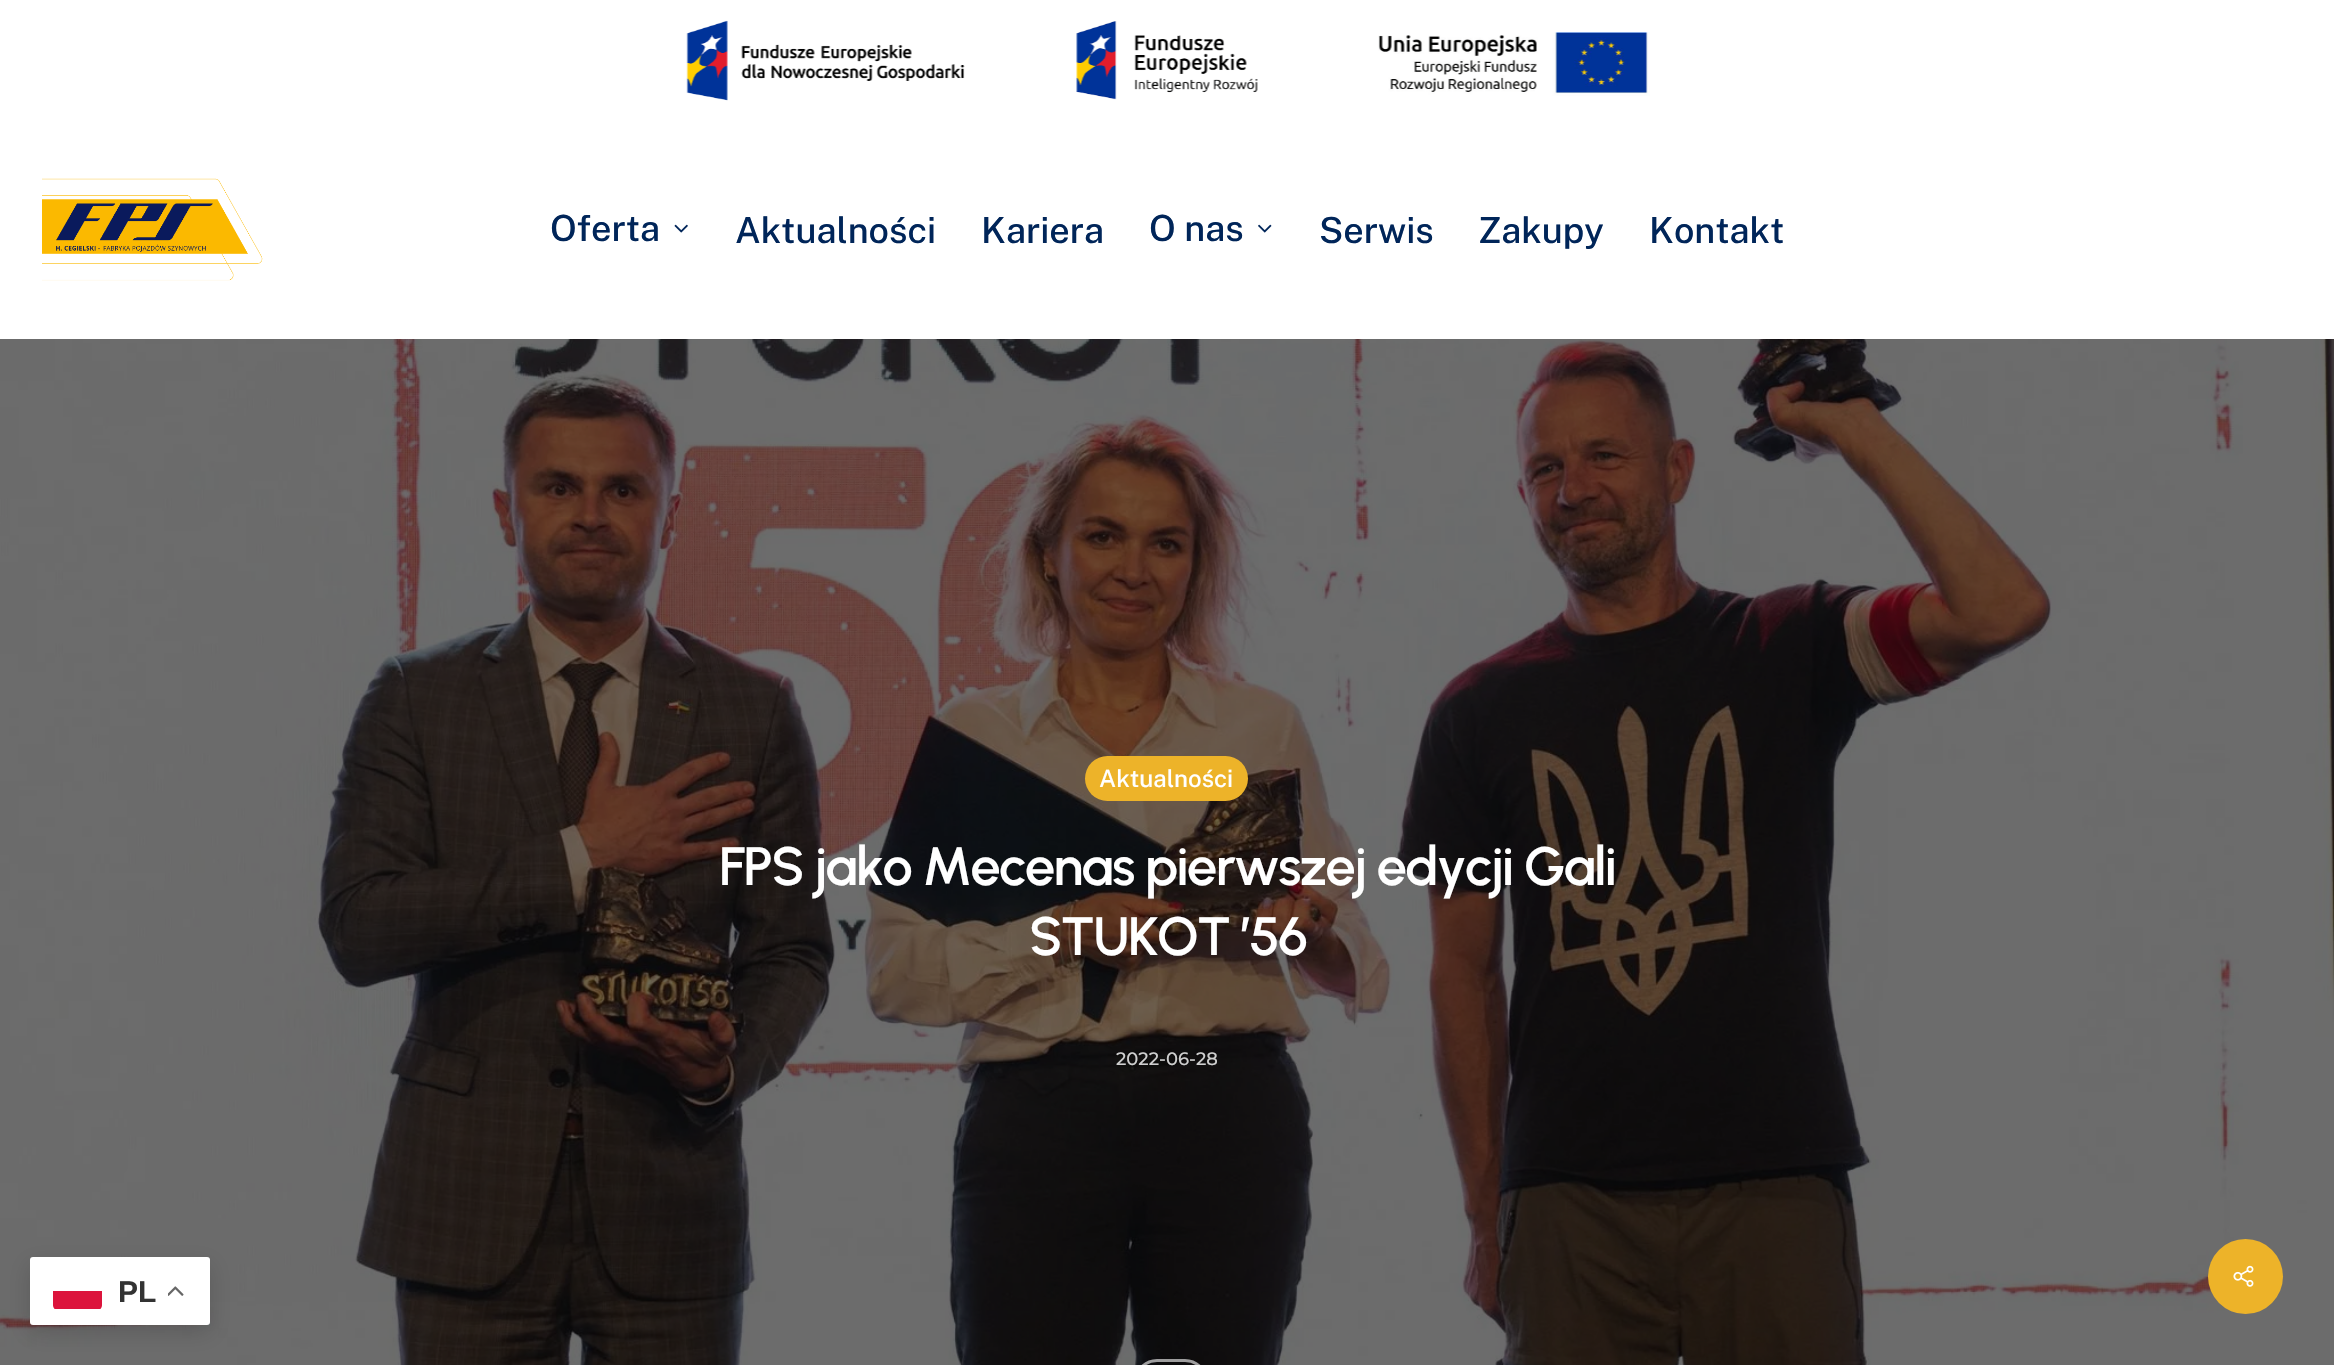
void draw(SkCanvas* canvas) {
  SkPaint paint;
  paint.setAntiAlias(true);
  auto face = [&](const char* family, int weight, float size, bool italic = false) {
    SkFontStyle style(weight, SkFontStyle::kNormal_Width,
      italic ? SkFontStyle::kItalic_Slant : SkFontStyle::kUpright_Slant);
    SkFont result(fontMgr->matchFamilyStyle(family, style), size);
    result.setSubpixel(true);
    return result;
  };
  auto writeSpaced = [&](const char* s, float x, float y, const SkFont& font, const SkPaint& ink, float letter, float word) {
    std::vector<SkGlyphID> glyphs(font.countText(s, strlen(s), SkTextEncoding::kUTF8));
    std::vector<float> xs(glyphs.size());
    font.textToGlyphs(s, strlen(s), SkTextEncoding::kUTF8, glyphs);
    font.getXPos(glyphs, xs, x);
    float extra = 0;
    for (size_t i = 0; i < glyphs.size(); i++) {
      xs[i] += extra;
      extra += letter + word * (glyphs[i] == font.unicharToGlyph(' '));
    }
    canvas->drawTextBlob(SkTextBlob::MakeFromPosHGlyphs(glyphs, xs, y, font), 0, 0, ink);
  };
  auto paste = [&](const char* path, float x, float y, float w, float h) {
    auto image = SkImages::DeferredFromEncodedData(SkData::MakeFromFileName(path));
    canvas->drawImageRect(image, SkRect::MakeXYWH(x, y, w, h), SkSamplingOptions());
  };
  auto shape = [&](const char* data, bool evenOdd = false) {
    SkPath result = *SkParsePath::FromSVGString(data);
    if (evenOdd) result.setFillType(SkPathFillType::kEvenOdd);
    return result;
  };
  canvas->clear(0xffffffff);
  paste("img/1.png", 686, 20, 279, 81);
  paste("img/2.png", 1076, 21, 182, 79);
  paste("img/3.png", 1378, 32, 272, 64);
  paste("img/4.png", 42, 178, 221, 103);
  paste("img/5.png", 674, 224, 14, 9);
  paste("img/6.png", 1258, 224, 14, 9);
  paste("img/7.png", 0, 339, 2334, 1026);
  paint.setColor(0xffedb329);
  canvas->drawRoundRect(SkRect::MakeXYWH(1085, 756, 163, 45), 22.5f, 22.5f, paint);
  paint.setStroke(true);
  paint.setStrokeWidth(3);
  paint.setColor(0x99ffffff);
  canvas->drawRoundRect(SkRect::MakeXYWH(1135.5f, 1360.5f, 71, 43), 35.5f, 35.5f, paint);
  paint.setStroke(false);
  paint.setColor(0xffedb329);
  canvas->drawCircle(2245.5f, 1276.5f, 37.5f, paint);
  paste("img/8.png", 2233, 1265, 21, 22);
  paint.setColor(0x26000000);
  paint.setMaskFilter(SkMaskFilter::MakeBlur(kNormal_SkBlurStyle, 11));
  canvas->drawRoundRect(SkRect::MakeXYWH(30, 1265, 180, 67), 3, 3, paint);
  paint.setMaskFilter(nullptr);
  paint.setColor(0xffffffff);
  canvas->drawRoundRect(SkRect::MakeXYWH(30, 1257, 180, 68), 3, 3, paint);
  canvas->save();
  canvas->clipPath(shape("M58 1272H97C100 1272 102 1274 102 1277V1305C102 1308 100 1310 97 1310H58C55 1310 53 1308 53 1305V1277C53 1274 55 1272 58 1272Z"), true);
  paint.setColor(0xffdc143c);
  canvas->drawRect(SkRect::MakeXYWH(53, 1291, 49, 18), paint);
  canvas->restore();
  paste("img/9.png", 168, 1286, 16, 10);
  auto f0 = face("Public Sans", 500, 36);
  paint.setColor(0xff002559);
  {
    const struct { const char* s; float x, y; } items[] = {
      {"Oferta", 550, 241},
      {"Aktualności", 735, 243},
      {"Kariera", 981, 243},
      {"O nas", 1149, 241},
      {"Serwis", 1319, 243},
      {"Zakupy", 1478, 243},
      {"Kontakt", 1649, 243},
    };
    for (auto [s, x, y] : items) {
      canvas->drawString(s, x, y, f0, paint);
    }
  }
  auto f1 = face("Public Sans", 500, 24);
  paint.setColor(0xffffffff);
  canvas->drawString("Aktualności", 1099, 787, f1, paint);
  auto f2 = face("Urbanist", 600, 54);
  writeSpaced("FPS jako Mecenas pierwszej edycji Gali", 719, 885, f2, paint, -1.6f, 0);
  writeSpaced("STUKOT ’56", 1029, 955, f2, paint, -1.6f, 0);
  auto f3 = face("Montserrat", 500, 18);
  paint.setColor(0xffcfcfcf);
  canvas->drawString("2022-06-28", 1116, 1065, f3, paint);
  auto f4 = face("Liberation Sans", 700, 30);
  paint.setColor(0xff333333);
  canvas->drawString("PL", 118, 1302, f4, paint);
}
